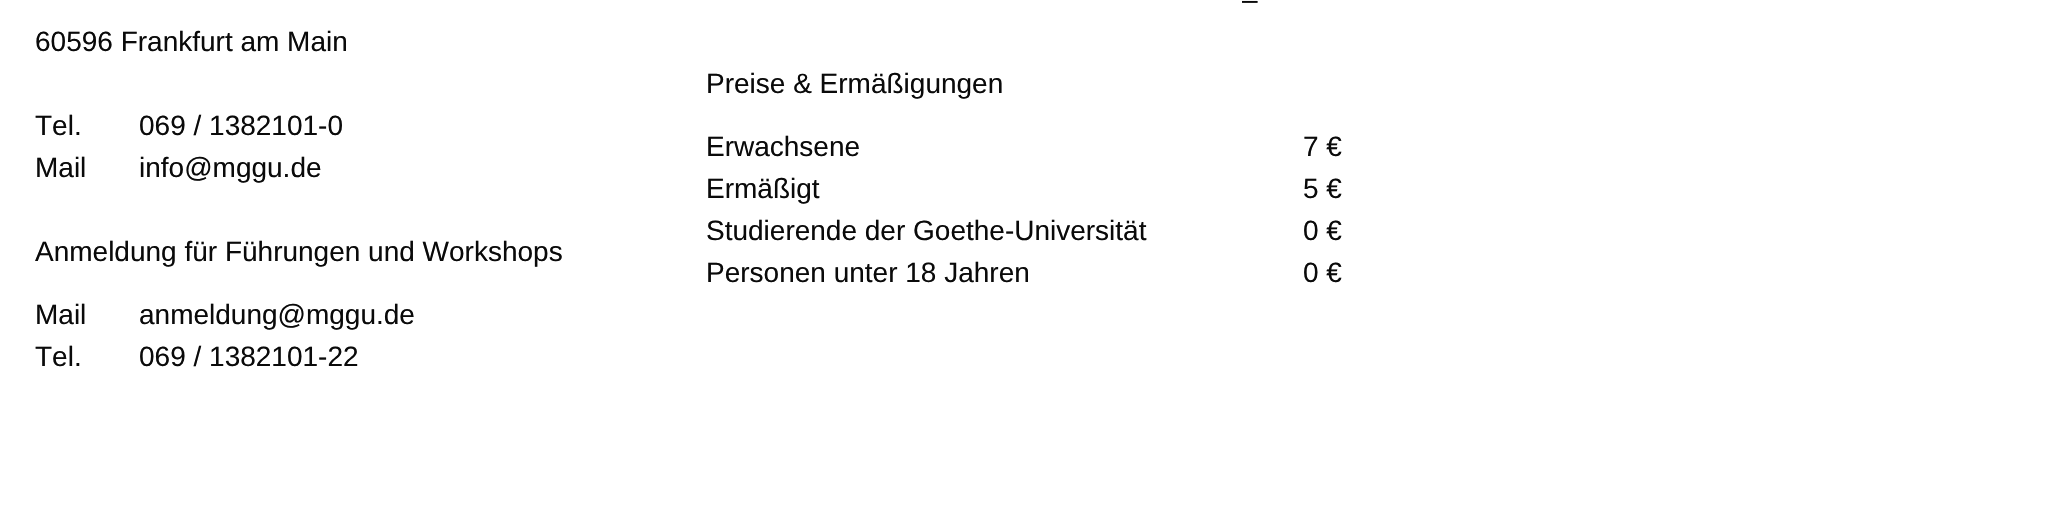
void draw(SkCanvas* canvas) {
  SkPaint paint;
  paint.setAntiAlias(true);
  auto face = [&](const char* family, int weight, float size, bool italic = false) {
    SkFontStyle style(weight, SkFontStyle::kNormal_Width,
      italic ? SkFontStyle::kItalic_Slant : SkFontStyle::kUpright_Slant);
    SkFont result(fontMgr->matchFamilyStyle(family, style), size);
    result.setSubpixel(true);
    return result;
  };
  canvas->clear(0xffffffff);
  auto f0 = face("Liberation Sans", 400, 28);
  paint.setColor(0xff0a0a0a);
  {
    const struct { const char* s; float x, y; } items[] = {
      {"60596 Frankfurt am Main", 35, 51},
      {"Tel.", 35, 135},
      {"069 / 1382101-0", 139, 135},
      {"Mail", 35, 177},
      {"info@mggu.de", 139, 177},
      {"Anmeldung für Führungen und Workshops", 35, 261},
      {"Mail", 35, 324},
      {"anmeldung@mggu.de", 139, 324},
      {"Tel.", 35, 366},
      {"069 / 1382101-22", 139, 366},
      {"–", 1242, 9},
      {"Preise & Ermäßigungen", 706, 93},
      {"Erwachsene", 706, 156},
      {"7 €", 1303, 156},
      {"Ermäßigt", 706, 198},
      {"5 €", 1303, 198},
      {"Studierende der Goethe-Universität", 706, 240},
      {"0 €", 1303, 240},
      {"Personen unter 18 Jahren", 706, 282},
      {"0 €", 1303, 282},
    };
    for (auto [s, x, y] : items) {
      canvas->drawString(s, x, y, f0, paint);
    }
  }
}
